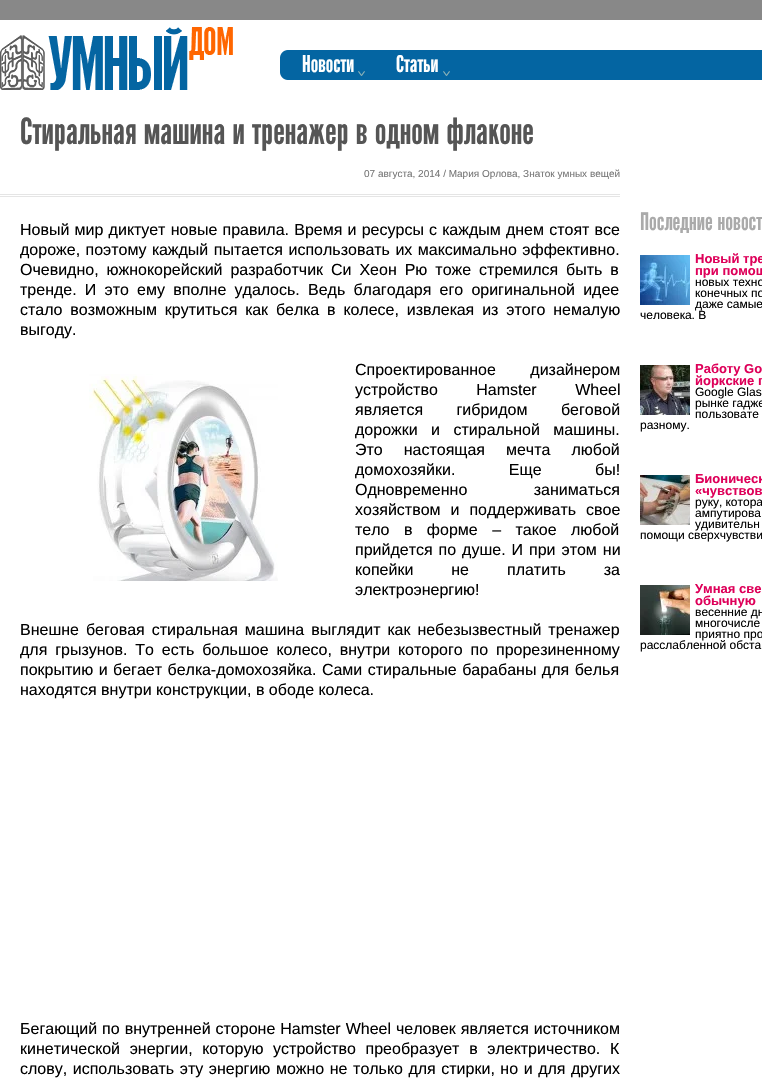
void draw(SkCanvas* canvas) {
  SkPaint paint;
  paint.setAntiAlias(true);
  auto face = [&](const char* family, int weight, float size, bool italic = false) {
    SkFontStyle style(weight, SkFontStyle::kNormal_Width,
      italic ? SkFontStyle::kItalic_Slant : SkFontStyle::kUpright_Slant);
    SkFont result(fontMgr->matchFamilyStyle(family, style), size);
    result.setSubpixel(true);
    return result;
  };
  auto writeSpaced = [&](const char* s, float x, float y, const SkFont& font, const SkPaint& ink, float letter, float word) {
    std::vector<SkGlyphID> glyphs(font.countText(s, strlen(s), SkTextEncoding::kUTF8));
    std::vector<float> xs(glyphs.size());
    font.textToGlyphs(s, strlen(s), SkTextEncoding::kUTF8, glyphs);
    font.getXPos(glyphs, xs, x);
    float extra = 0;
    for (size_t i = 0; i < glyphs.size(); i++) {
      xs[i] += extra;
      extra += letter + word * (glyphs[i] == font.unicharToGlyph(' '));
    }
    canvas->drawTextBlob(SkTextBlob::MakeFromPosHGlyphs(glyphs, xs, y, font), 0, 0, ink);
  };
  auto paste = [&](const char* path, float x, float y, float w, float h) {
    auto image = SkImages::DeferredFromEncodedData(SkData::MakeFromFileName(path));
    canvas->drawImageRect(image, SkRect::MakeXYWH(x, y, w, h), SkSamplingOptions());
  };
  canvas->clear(0xffffffff);
  paint.setColor(0xff888888);
  canvas->drawRect(SkRect::MakeXYWH(0, 0, 762, 20), paint);
  paste("img/1.png", 0, 27, 233, 63);
  paste("img/2.png", 280, 50, 482, 30);
  paste("img/3.png", 358, 71, 7, 5);
  paste("img/3.png", 443, 71, 7, 5);
  paint.setColor(0xffe5e5e5);
  canvas->drawRect(SkRect::MakeXYWH(0, 194, 620, 1), paint);
  canvas->drawRect(SkRect::MakeXYWH(0, 196, 620, 1), paint);
  paste("img/4.png", 89, 374, 189, 207);
  paste("img/5.png", 640, 255, 50, 50);
  paste("img/6.png", 640, 365, 50, 50);
  paste("img/7.png", 640, 475, 50, 50);
  paste("img/8.png", 640, 585, 50, 50);
  auto f0 = face("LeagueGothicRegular", 400, 23);
  paint.setColor(0xffffffff);
  canvas->drawString("Новости", 302, 72, f0, paint);
  canvas->drawString("Статьи", 396, 72, f0, paint);
  auto f1 = face("LeagueGothicRegular", 400, 36);
  paint.setColor(0xff555555);
  canvas->drawString("Стиральная машина и тренажер в одном флаконе", 20, 144, f1, paint);
  auto f2 = face("Liberation Sans", 400, 10);
  paint.setColor(0xff777777);
  canvas->drawString("07 августа, 2014 / Мария Орлова, Знаток умных вещей", 364, 177, f2, paint);
  auto f3 = face("Liberation Sans", 400, 16);
  paint.setColor(0xff000000);
  writeSpaced("Новый мир диктует новые правила. Время и ресурсы с каждым днем стоят все", 20, 235, f3, paint, 0, 0.75f);
  writeSpaced("дороже, поэтому каждый пытается использовать их максимально эффективно.", 20, 255, f3, paint, 0, 1);
  writeSpaced("Очевидно, южнокорейский разработчик Си Хеон Рю тоже стремился быть в", 20, 275, f3, paint, 0, 3.5f);
  writeSpaced("тренде. И это ему вполне удалось. Ведь благодаря его оригинальной идее", 20, 295, f3, paint, 0, 3.75f);
  writeSpaced("стало возможным крутиться как белка в колесе, извлекая из этого немалую", 20, 315, f3, paint, 0, 3.4f);
  canvas->drawString("выгоду.", 20, 335, f3, paint);
  writeSpaced("Спроектированное дизайнером", 355, 375, f3, paint, 0, 30);
  writeSpaced("устройство Hamster Wheel", 355, 395, f3, paint, 0, 34);
  writeSpaced("является гибридом беговой", 355, 415, f3, paint, 0, 29);
  writeSpaced("дорожки и стиральной машины.", 355, 435, f3, paint, 0, 9);
  writeSpaced("Это настоящая мечта любой", 355, 455, f3, paint, 0, 16.5f);
  writeSpaced("домохозяйки. Еще бы!", 355, 475, f3, paint, 0, 49);
  writeSpaced("Одновременно заниматься", 355, 495, f3, paint, 0, 62);
  writeSpaced("хозяйством и поддерживать свое", 355, 515, f3, paint, 0, 5.5f);
  writeSpaced("тело в форме – такое любой", 355, 535, f3, paint, 0, 10);
  writeSpaced("прийдется по душе. И при этом ни", 355, 555, f3, paint, 0, 1.5f);
  writeSpaced("копейки не платить за", 355, 575, f3, paint, 0, 33.5f);
  canvas->drawString("электроэнергию!", 355, 595, f3, paint);
  writeSpaced("Внешне беговая стиральная машина выглядит как небезызвестный тренажер", 20, 635, f3, paint, 0, 2.5f);
  writeSpaced("для грызунов. То есть большое колесо, внутри которого по прорезиненному", 20, 655, f3, paint, 0, 3.4f);
  writeSpaced("покрытию и бегает белка-домохозяйка. Сами стиральные барабаны для белья", 20, 675, f3, paint, 0, 1);
  canvas->drawString("находятся внутри конструкции, в ободе колеса.", 20, 695, f3, paint);
  writeSpaced("Бегающий по внутренней стороне Hamster Wheel человек является источником", 20, 1034, f3, paint, 0, 0.5f);
  writeSpaced("кинетической энергии, которую устройство преобразует в электричество. К", 20, 1054, f3, paint, 0, 5.25f);
  writeSpaced("слову, использовать эту энергию можно не только для стирки, но и для других", 20, 1074, f3, paint, 0, 1.1f);
  auto f4 = face("LeagueGothicRegular", 400, 24);
  paint.setColor(0xffaaaaaa);
  canvas->drawString("Последние новост", 640, 230, f4, paint);
  auto f5 = face("Liberation Sans", 700, 13);
  paint.setColor(0xffde0059);
  canvas->drawString("Новый тре", 695, 263, f5, paint);
  canvas->drawString("при помощ", 695, 275, f5, paint);
  auto f6 = face("Liberation Sans", 400, 12);
  paint.setColor(0xff000000);
  {
    const struct { const char* s; float x, y; } items[] = {
      {"новых техно", 695, 286},
      {"конечных по", 695, 297},
      {"даже самые", 695, 308},
      {"человека. В", 640, 319},
    };
    for (auto [s, x, y] : items) {
      canvas->drawString(s, x, y, f6, paint);
    }
  }
  paint.setColor(0xffde0059);
  canvas->drawString("Работу Go", 695, 373, f5, paint);
  canvas->drawString("йоркские п", 695, 385, f5, paint);
  paint.setColor(0xff000000);
  {
    const struct { const char* s; float x, y; } items[] = {
      {"Google Glas", 695, 396},
      {"рынке гадже", 695, 407},
      {"пользовате", 695, 418},
      {"разному.", 640, 429},
    };
    for (auto [s, x, y] : items) {
      canvas->drawString(s, x, y, f6, paint);
    }
  }
  paint.setColor(0xffde0059);
  canvas->drawString("Бионическ", 695, 483, f5, paint);
  canvas->drawString("«чувствов", 695, 495, f5, paint);
  paint.setColor(0xff000000);
  {
    const struct { const char* s; float x, y; } items[] = {
      {"руку, котора", 695, 506},
      {"ампутирова", 695, 517},
      {"удивительн", 695, 528},
      {"помощи сверхчувстви", 640, 539},
    };
    for (auto [s, x, y] : items) {
      canvas->drawString(s, x, y, f6, paint);
    }
  }
  paint.setColor(0xffde0059);
  canvas->drawString("Умная све", 695, 593, f5, paint);
  canvas->drawString("обычную", 695, 605, f5, paint);
  paint.setColor(0xff000000);
  {
    const struct { const char* s; float x, y; } items[] = {
      {"весенние дн", 695, 616},
      {"многочисле", 695, 627},
      {"приятно про", 695, 638},
      {"расслабленной обста", 640, 649},
    };
    for (auto [s, x, y] : items) {
      canvas->drawString(s, x, y, f6, paint);
    }
  }
}
